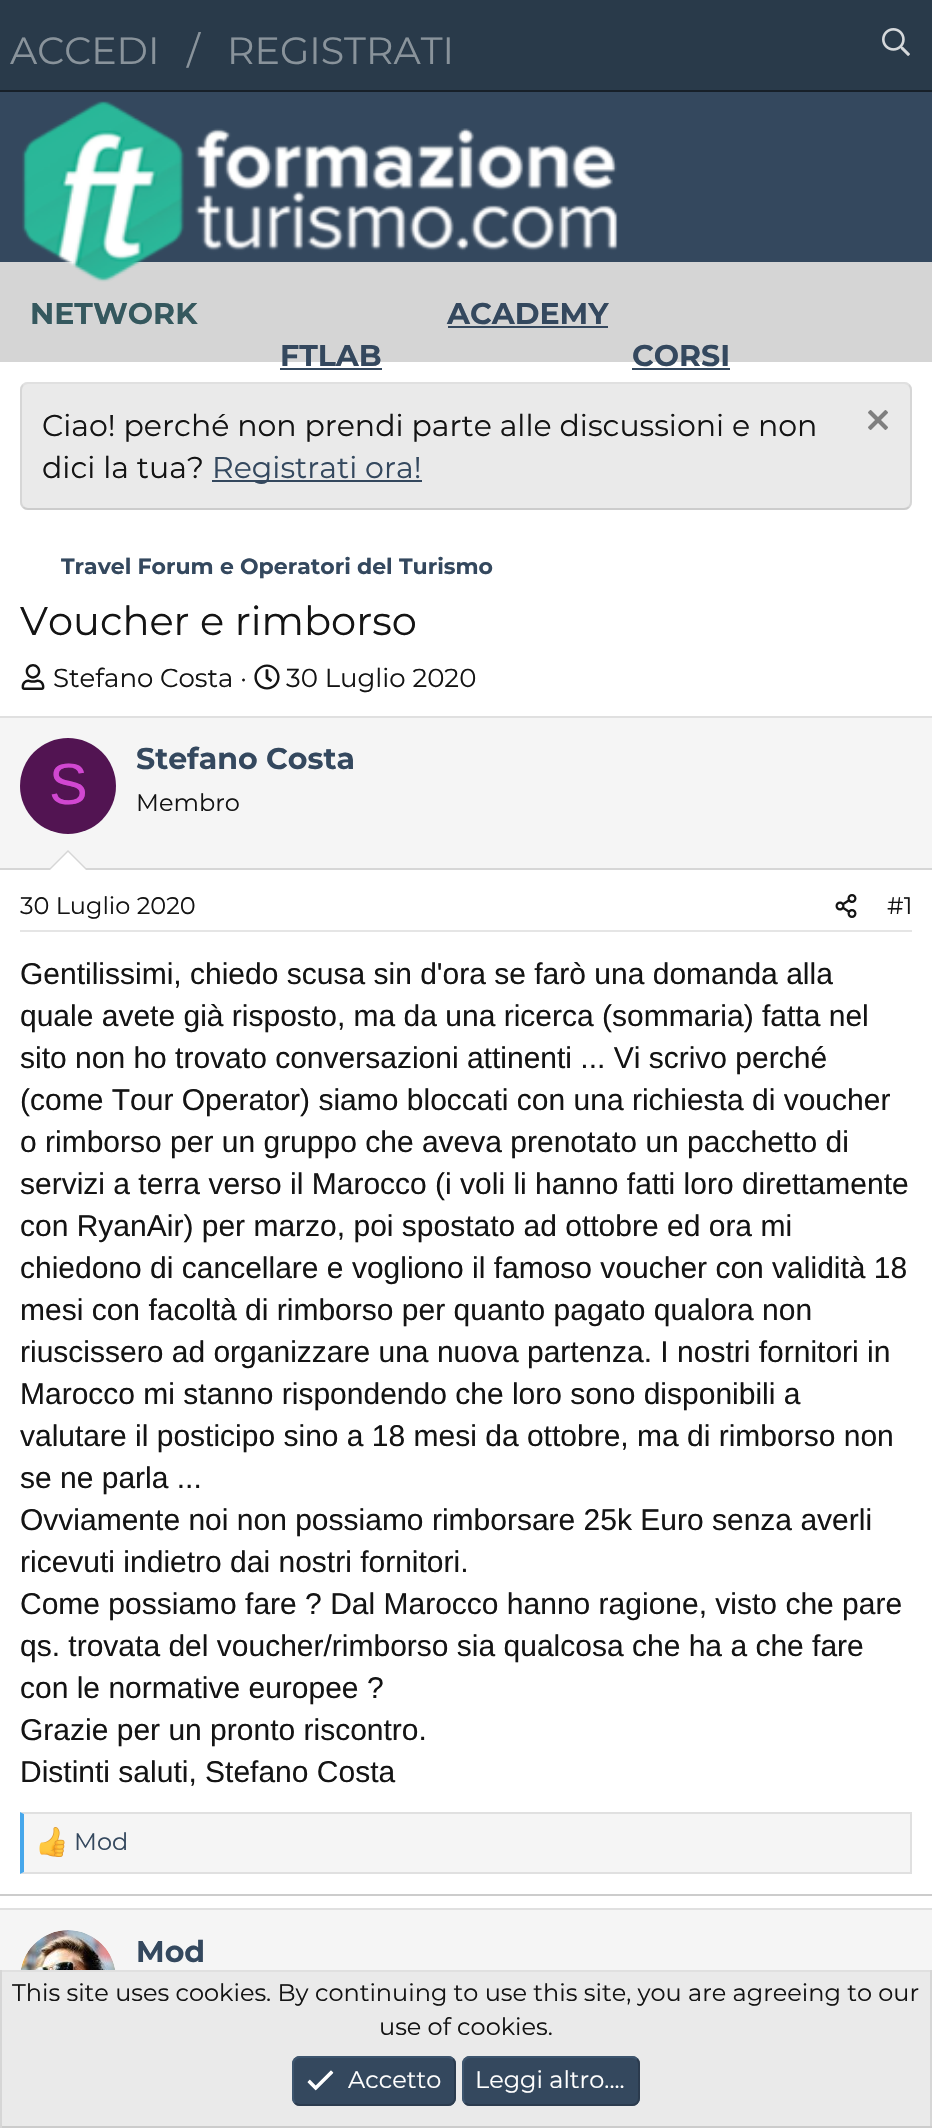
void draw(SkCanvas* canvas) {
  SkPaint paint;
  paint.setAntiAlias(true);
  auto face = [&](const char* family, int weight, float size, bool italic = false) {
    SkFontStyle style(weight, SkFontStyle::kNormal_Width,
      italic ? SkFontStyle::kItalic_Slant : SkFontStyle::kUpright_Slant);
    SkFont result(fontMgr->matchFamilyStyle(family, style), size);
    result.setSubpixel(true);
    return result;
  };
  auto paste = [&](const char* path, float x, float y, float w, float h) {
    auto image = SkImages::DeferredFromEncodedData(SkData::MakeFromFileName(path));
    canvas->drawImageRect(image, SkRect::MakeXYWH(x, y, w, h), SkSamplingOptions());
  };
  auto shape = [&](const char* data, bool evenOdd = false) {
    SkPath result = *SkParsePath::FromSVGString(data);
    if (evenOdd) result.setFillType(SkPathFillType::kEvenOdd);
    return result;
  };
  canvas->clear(0xff293a4a);
  paint.setColor(0xff172029);
  canvas->drawRect(SkRect::MakeXYWH(0, 90, 932, 2), paint);
  paste("img/1.png", 882, 28, 28, 28);
  paint.setColor(0xff34485e);
  canvas->drawRect(SkRect::MakeXYWH(0, 92, 932, 170), paint);
  paint.setColor(0xffd5d5d5);
  canvas->drawRect(SkRect::MakeXYWH(0, 262, 932, 100), paint);
  paste("img/2.png", 22, 101, 596, 181);
  {
    const struct { float x, y, w, h; SkColor color; } items[] = {
      {448, 326, 160, 2, 0xff34485e},
      {0, 362, 932, 1546, 0xffffffff},
      {280, 368, 102, 2, 0xff34485e},
      {632, 368, 98, 2, 0xff34485e},
    };
    for (auto [x, y, w, h, color] : items) {
      paint.setColor(color);
      canvas->drawRect(SkRect::MakeXYWH(x, y, w, h), paint);
    }
  }
  paint.setColor(0xffeaeaea);
  canvas->drawRoundRect(SkRect::MakeXYWH(20, 382, 892, 128), 8, 8, paint);
  paint.setStroke(true);
  paint.setStrokeWidth(2);
  paint.setColor(0xffe0e0e0);
  canvas->drawPath(shape("M23 385C24.5 383.5 26 383 28 383H904C906 383 907.5 383.5 909 385"), paint);
  paint.setColor(0xffd6d6d6);
  canvas->drawPath(shape("M909 385C910.5 386.5 911 388 911 390V502C911 504 910.5 505.5 909 507"), paint);
  paint.setColor(0xffcccccc);
  canvas->drawPath(shape("M909 507C907.5 508.5 906 509 904 509H28C26 509 24.5 508.5 23 507"), paint);
  paint.setColor(0xffd6d6d6);
  canvas->drawPath(shape("M23 507C21.5 505.5 21 504 21 502V390C21 388 21.5 386.5 23 385"), paint);
  paste("img/3.png", 868, 410, 20, 20);
  paint.setStroke(false);
  paint.setColor(0xff34485e);
  canvas->drawRect(SkRect::MakeXYWH(212, 480, 210, 2), paint);
  paste("img/4.png", 21, 664, 24, 26);
  paste("img/5.png", 254, 664, 26, 26);
  {
    const struct { float x, y, w, h; SkColor color; } items[] = {
      {0, 716, 932, 2, 0xffe0e0e0},
      {0, 1894, 932, 2, 0xffcccccc},
      {0, 718, 932, 150, 0xfff5f5f5},
      {0, 868, 932, 2, 0xffd6d6d6},
    };
    for (auto [x, y, w, h, color] : items) {
      paint.setColor(color);
      canvas->drawRect(SkRect::MakeXYWH(x, y, w, h), paint);
    }
  }
  paint.setColor(0xff521452);
  canvas->drawCircle(68, 786, 48, paint);
  paint.setColor(0xffd6d6d6);
  canvas->drawPath(shape("M88 870H48L68 850Z"), paint);
  paint.setColor(0xffffffff);
  canvas->drawPath(shape("M86 870H50L68 852Z"), paint);
  paint.setColor(0xffe5e5e5);
  canvas->drawRect(SkRect::MakeXYWH(20, 930, 892, 2), paint);
  paste("img/6.png", 835, 894, 22, 24);
  paint.setColor(0xfff5f5f5);
  canvas->drawRect(SkRect::MakeXYWH(24, 1814, 886, 58), paint);
  paint.setColor(0xffe0e0e0);
  canvas->drawPath(shape("M20 1812H912L910 1814H24Z"), paint);
  canvas->drawRect(SkRect::MakeXYWH(910, 1812, 2, 62), paint);
  canvas->drawPath(shape("M912 1874H20L24 1872H910Z"), paint);
  paint.setColor(0xff47a7eb);
  canvas->drawPath(shape("M20 1874V1812L24 1814V1872Z"), paint);
  paste("img/7.png", 39, 1827, 26, 30);
  paint.setColor(0xffe0e0e0);
  canvas->drawRect(SkRect::MakeXYWH(0, 1908, 932, 2), paint);
  paint.setColor(0xfff5f5f5);
  canvas->drawRect(SkRect::MakeXYWH(0, 1910, 932, 60), paint);
  paint.setColor(0xffffffff);
  canvas->drawCircle(68, 1978, 48, paint);
  paste("img/8.png", 20, 1930, 96, 40);
  {
    const struct { float x, y, w, h; SkColor color; } items[] = {
      {2, 1972, 928, 154, 0xffeaeaea},
      {0, 1970, 932, 2, 0xffe0e0e0},
      {930, 1970, 2, 158, 0xffd6d6d6},
      {0, 2126, 932, 2, 0xffcccccc},
      {0, 1970, 2, 158, 0xffd6d6d6},
    };
    for (auto [x, y, w, h, color] : items) {
      paint.setColor(color);
      canvas->drawRect(SkRect::MakeXYWH(x, y, w, h), paint);
    }
  }
  paint.setColor(0xff34485e);
  canvas->drawRoundRect(SkRect::MakeXYWH(292, 2056, 164, 50), 8, 8, paint);
  paint.setStroke(true);
  paint.setColor(0xff2b3b4e);
  canvas->drawPath(shape("M453 2059C454.5 2060.5 455 2062 455 2064V2098C455 2100 454.5 2101.5 453 2103C451.5 2104.5 450 2105 448 2105H300C298 2105 296.5 2104.5 295 2103"), paint);
  paint.setColor(0xff3d556e);
  canvas->drawPath(shape("M295 2103C293.5 2101.5 293 2100 293 2098V2064C293 2062 293.5 2060.5 295 2059C296.5 2057.5 298 2057 300 2057H448C450 2057 451.5 2057.5 453 2059"), paint);
  paste("img/9.png", 307, 2070, 27, 21);
  paint.setStroke(false);
  paint.setColor(0xff34485e);
  canvas->drawRoundRect(SkRect::MakeXYWH(462, 2056, 178, 50), 8, 8, paint);
  paint.setStroke(true);
  paint.setColor(0xff2b3b4e);
  canvas->drawPath(shape("M637 2059C638.5 2060.5 639 2062 639 2064V2098C639 2100 638.5 2101.5 637 2103C635.5 2104.5 634 2105 632 2105H470C468 2105 466.5 2104.5 465 2103"), paint);
  paint.setColor(0xff3d556e);
  canvas->drawPath(shape("M465 2103C463.5 2101.5 463 2100 463 2098V2064C463 2062 463.5 2060.5 465 2059C466.5 2057.5 468 2057 470 2057H632C634 2057 635.5 2057.5 637 2059"), paint);
  auto f0 = face("Montserrat", 400, 38);
  paint.setStroke(false);
  paint.setColor(0xff89939b);
  {
    const struct { const char* s; float x, y; } items[] = {
      {"ACCEDI", 10, 64},
      {"/", 187, 64},
      {"REGISTRATI", 227, 64},
    };
    for (auto [s, x, y] : items) {
      canvas->drawString(s, x, y, f0, paint);
    }
  }
  auto f1 = face("Montserrat", 700, 30);
  paint.setColor(0xff35585e);
  canvas->drawString("NETWORK", 30, 324, f1, paint);
  paint.setColor(0xff34485e);
  {
    const struct { const char* s; float x, y; } items[] = {
      {"ACADEMY", 447, 324},
      {"FTLAB", 280, 366},
      {"CORSI", 632, 366},
    };
    for (auto [s, x, y] : items) {
      canvas->drawString(s, x, y, f1, paint);
    }
  }
  auto f2 = face("Montserrat", 400, 30);
  paint.setColor(0xff141414);
  canvas->drawString("Ciao! perché non prendi parte alle discussioni e non", 42, 436, f2, paint);
  canvas->drawString("dici la tua?", 42, 478, f2, paint);
  paint.setColor(0xff34485e);
  canvas->drawString("Registrati ora!", 212, 478, f2, paint);
  auto f3 = face("Montserrat", 700, 22);
  canvas->drawString("Travel Forum e Operatori del Turismo", 61, 574, f3, paint);
  auto f4 = face("Montserrat", 400, 40);
  paint.setColor(0xff141414);
  canvas->drawString("Voucher e rimborso", 20, 635, f4, paint);
  auto f5 = face("Montserrat", 400, 26);
  canvas->drawString("Stefano Costa ·", 53, 687, f5, paint);
  canvas->drawString("30 Luglio 2020", 286, 687, f5, paint);
  auto f6 = face("Liberation Sans", 400, 58);
  paint.setColor(0xffd147d1);
  canvas->drawString("S", 49, 804, f6, paint);
  paint.setColor(0xff34485e);
  canvas->drawString("Stefano Costa", 136, 769, f1, paint);
  auto f7 = face("Montserrat", 400, 24);
  paint.setColor(0xff141414);
  {
    const struct { const char* s; float x, y; } items[] = {
      {"Membro", 136, 811},
      {"30 Luglio 2020", 20, 914},
      {"#1", 887, 914},
    };
    for (auto [s, x, y] : items) {
      canvas->drawString(s, x, y, f7, paint);
    }
  }
  auto f8 = face("Liberation Sans", 400, 30);
  {
    const struct { const char* s; float x, y; } items[] = {
      {"Gentilissimi, chiedo scusa sin d'ora se farò una domanda alla", 20, 984},
      {"quale avete già risposto, ma da una ricerca (sommaria) fatta nel", 20, 1026},
      {"sito non ho trovato conversazioni attinenti ... Vi scrivo perché", 20, 1068},
      {"(come Tour Operator) siamo bloccati con una richiesta di voucher", 20, 1110},
      {"o rimborso per un gruppo che aveva prenotato un pacchetto di", 20, 1152},
      {"servizi a terra verso il Marocco (i voli li hanno fatti loro direttamente", 20, 1194},
      {"con RyanAir) per marzo, poi spostato ad ottobre ed ora mi", 20, 1236},
      {"chiedono di cancellare e vogliono il famoso voucher con validità 18", 20, 1278},
      {"mesi con facoltà di rimborso per quanto pagato qualora non", 20, 1320},
      {"riuscissero ad organizzare una nuova partenza. I nostri fornitori in", 20, 1362},
      {"Marocco mi stanno rispondendo che loro sono disponibili a", 20, 1404},
      {"valutare il posticipo sino a 18 mesi da ottobre, ma di rimborso non", 20, 1446},
      {"se ne parla ...", 20, 1488},
      {"Ovviamente noi non possiamo rimborsare 25k Euro senza averli", 20, 1530},
      {"ricevuti indietro dai nostri fornitori.", 20, 1572},
      {"Come possiamo fare ? Dal Marocco hanno ragione, visto che pare", 20, 1614},
      {"qs. trovata del voucher/rimborso sia qualcosa che ha a che fare", 20, 1656},
      {"con le normative europee ?", 20, 1698},
      {"Grazie per un pronto riscontro.", 20, 1740},
      {"Distinti saluti, Stefano Costa", 20, 1782},
    };
    for (auto [s, x, y] : items) {
      canvas->drawString(s, x, y, f8, paint);
    }
  }
  paint.setColor(0xff34485e);
  canvas->drawString("Mod", 74, 1850, f7, paint);
  canvas->drawString("Mod", 136, 1962, f1, paint);
  paint.setColor(0xff141414);
  canvas->drawString("This site uses cookies. By continuing to use this site, you are agreeing to our", 12, 2001, f7, paint);
  canvas->drawString("use of cookies.", 379, 2035, f7, paint);
  paint.setColor(0xffffffff);
  canvas->drawString("Accetto", 348, 2088, f7, paint);
  canvas->drawString("Leggi altro....", 475, 2088, f7, paint);
}
